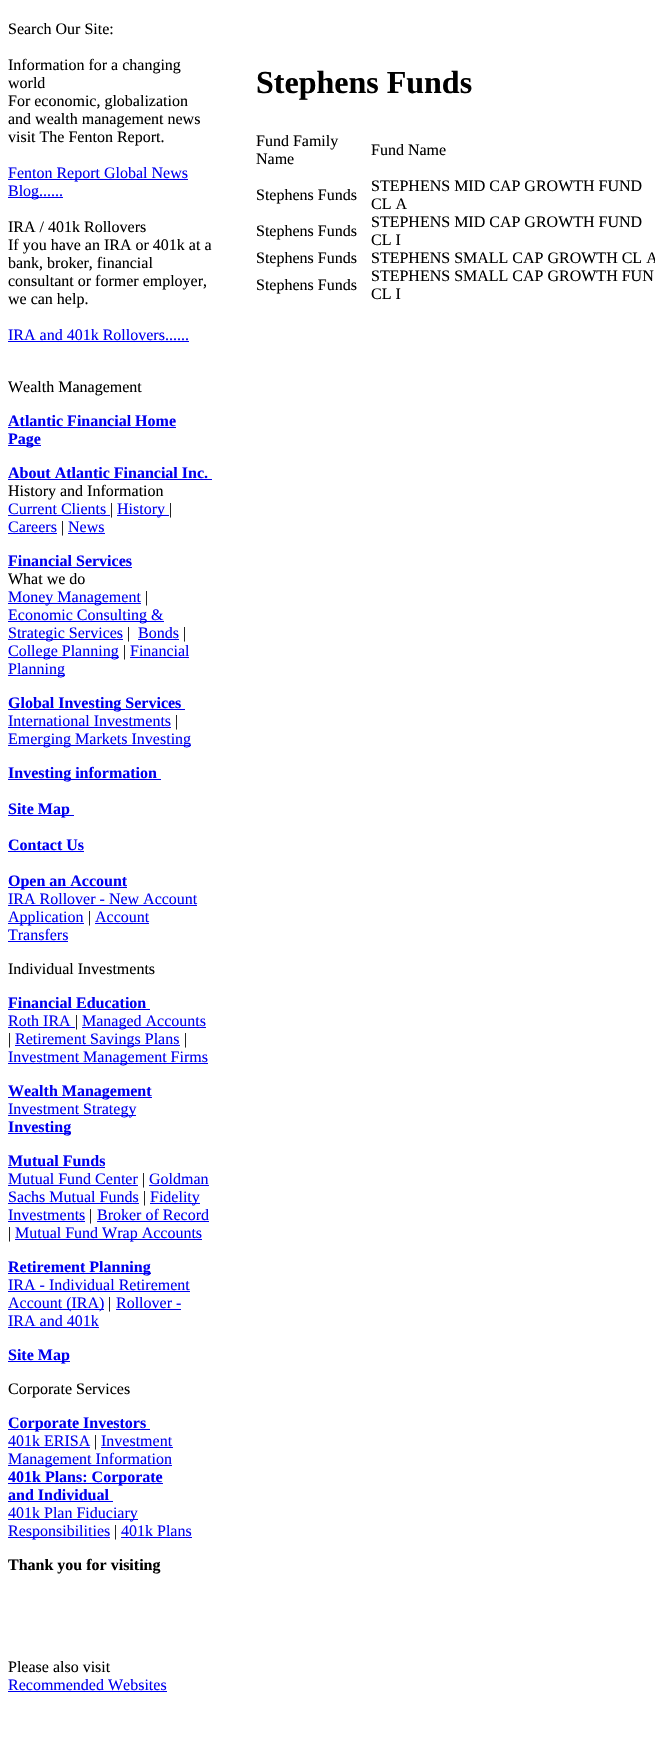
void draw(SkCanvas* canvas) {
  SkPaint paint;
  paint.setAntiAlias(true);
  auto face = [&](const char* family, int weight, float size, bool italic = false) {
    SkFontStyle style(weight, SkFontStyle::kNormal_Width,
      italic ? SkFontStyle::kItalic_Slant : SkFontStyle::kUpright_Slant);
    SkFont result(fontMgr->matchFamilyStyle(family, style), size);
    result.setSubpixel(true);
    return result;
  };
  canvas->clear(0xffffffff);
  {
    const struct { float x, y, w, h; SkColor color; } items[] = {
      {8, 179, 180, 1, 0xff0000ee},
      {8, 197, 55, 1, 0xff0000ee},
      {8, 341, 181, 1, 0xff0000ee},
      {8, 427, 168, 1, 0xff0000ee},
      {8, 445, 33, 1, 0xff0000ee},
      {8, 479, 204, 1, 0xff0000ee},
      {8, 515, 102, 1, 0xff0000ee},
      {117, 515, 52, 1, 0xff0000ee},
      {8, 533, 49, 1, 0xff0000ee},
      {68, 533, 37, 1, 0xff0000ee},
      {8, 567, 124, 1, 0xff0000ee},
      {8, 603, 133, 1, 0xff0000ee},
      {8, 621, 156, 1, 0xff0000ee},
      {8, 639, 115, 1, 0xff0000ee},
      {138, 639, 41, 1, 0xff0000ee},
      {8, 657, 111, 1, 0xff0000ee},
      {130, 657, 59, 1, 0xff0000ee},
      {8, 675, 57, 1, 0xff0000ee},
      {8, 709, 177, 1, 0xff0000ee},
      {8, 727, 163, 1, 0xff0000ee},
      {8, 745, 183, 1, 0xff0000ee},
      {8, 779, 153, 1, 0xff0000ee},
      {8, 815, 66, 1, 0xff0000ee},
      {8, 851, 76, 1, 0xff0000ee},
      {8, 887, 119, 1, 0xff0000ee},
      {8, 905, 189, 1, 0xff0000ee},
      {8, 923, 76, 1, 0xff0000ee},
      {95, 923, 54, 1, 0xff0000ee},
      {8, 941, 60, 1, 0xff0000ee},
      {8, 1009, 142, 1, 0xff0000ee},
      {8, 1027, 67, 1, 0xff0000ee},
      {82, 1027, 124, 1, 0xff0000ee},
      {15, 1045, 165, 1, 0xff0000ee},
      {8, 1063, 200, 1, 0xff0000ee},
      {8, 1097, 144, 1, 0xff0000ee},
      {8, 1115, 128, 1, 0xff0000ee},
      {8, 1133, 63, 1, 0xff0000ee},
      {8, 1167, 97, 1, 0xff0000ee},
      {8, 1185, 130, 1, 0xff0000ee},
      {149, 1185, 60, 1, 0xff0000ee},
      {8, 1203, 131, 1, 0xff0000ee},
      {150, 1203, 50, 1, 0xff0000ee},
      {8, 1221, 77, 1, 0xff0000ee},
      {97, 1221, 112, 1, 0xff0000ee},
      {15, 1239, 187, 1, 0xff0000ee},
      {8, 1273, 143, 1, 0xff0000ee},
      {8, 1291, 182, 1, 0xff0000ee},
      {8, 1309, 96, 1, 0xff0000ee},
      {116, 1309, 65, 1, 0xff0000ee},
      {8, 1327, 91, 1, 0xff0000ee},
      {8, 1361, 62, 1, 0xff0000ee},
      {8, 1429, 142, 1, 0xff0000ee},
      {8, 1447, 82, 1, 0xff0000ee},
      {101, 1447, 72, 1, 0xff0000ee},
      {8, 1465, 164, 1, 0xff0000ee},
      {8, 1483, 155, 1, 0xff0000ee},
      {8, 1501, 105, 1, 0xff0000ee},
      {8, 1519, 130, 1, 0xff0000ee},
      {8, 1537, 102, 1, 0xff0000ee},
      {121, 1537, 71, 1, 0xff0000ee},
      {8, 1691, 159, 1, 0xff0000ee},
    };
    for (auto [x, y, w, h, color] : items) {
      paint.setColor(color);
      canvas->drawRect(SkRect::MakeXYWH(x, y, w, h), paint);
    }
  }
  auto f0 = face("Liberation Serif", 400, 16);
  paint.setColor(0xff000000);
  {
    const struct { const char* s; float x, y; } items[] = {
      {"Search Our Site:", 8, 34},
      {"Information for a changing", 8, 70},
      {"world", 8, 88},
      {"For economic, globalization", 8, 106},
      {"and wealth management news", 8, 124},
      {"visit The Fenton Report.", 8, 142},
    };
    for (auto [s, x, y] : items) {
      canvas->drawString(s, x, y, f0, paint);
    }
  }
  paint.setColor(0xff0000ee);
  canvas->drawString("Fenton Report Global News", 8, 178, f0, paint);
  canvas->drawString("Blog......", 8, 196, f0, paint);
  paint.setColor(0xff000000);
  {
    const struct { const char* s; float x, y; } items[] = {
      {"IRA / 401k Rollovers", 8, 232},
      {"If you have an IRA or 401k at a", 8, 250},
      {"bank, broker, financial", 8, 268},
      {"consultant or former employer,", 8, 286},
      {"we can help.", 8, 304},
    };
    for (auto [s, x, y] : items) {
      canvas->drawString(s, x, y, f0, paint);
    }
  }
  paint.setColor(0xff0000ee);
  canvas->drawString("IRA and 401k Rollovers......", 8, 340, f0, paint);
  paint.setColor(0xff000000);
  canvas->drawString("Wealth Management", 8, 392, f0, paint);
  auto f1 = face("Liberation Serif", 700, 16);
  paint.setColor(0xff0000ee);
  {
    const struct { const char* s; float x, y; } items[] = {
      {"Atlantic Financial Home", 8, 426},
      {"Page", 8, 444},
      {"About Atlantic Financial Inc.", 8, 478},
    };
    for (auto [s, x, y] : items) {
      canvas->drawString(s, x, y, f1, paint);
    }
  }
  paint.setColor(0xff000000);
  canvas->drawString("History and Information", 8, 496, f0, paint);
  paint.setColor(0xff0000ee);
  canvas->drawString("Current Clients", 8, 514, f0, paint);
  paint.setColor(0xff000000);
  canvas->drawString("|", 110, 514, f0, paint);
  paint.setColor(0xff0000ee);
  canvas->drawString("History", 117, 514, f0, paint);
  paint.setColor(0xff000000);
  canvas->drawString("|", 169, 514, f0, paint);
  paint.setColor(0xff0000ee);
  canvas->drawString("Careers", 8, 532, f0, paint);
  paint.setColor(0xff000000);
  canvas->drawString("|", 61, 532, f0, paint);
  paint.setColor(0xff0000ee);
  canvas->drawString("News", 68, 532, f0, paint);
  canvas->drawString("Financial Services", 8, 566, f1, paint);
  paint.setColor(0xff000000);
  canvas->drawString("What we do", 8, 584, f0, paint);
  paint.setColor(0xff0000ee);
  canvas->drawString("Money Management", 8, 602, f0, paint);
  paint.setColor(0xff000000);
  canvas->drawString("|", 145, 602, f0, paint);
  paint.setColor(0xff0000ee);
  canvas->drawString("Economic Consulting &", 8, 620, f0, paint);
  canvas->drawString("Strategic Services", 8, 638, f0, paint);
  paint.setColor(0xff000000);
  canvas->drawString("|", 127, 638, f0, paint);
  paint.setColor(0xff0000ee);
  canvas->drawString("Bonds", 138, 638, f0, paint);
  paint.setColor(0xff000000);
  canvas->drawString("|", 183, 638, f0, paint);
  paint.setColor(0xff0000ee);
  canvas->drawString("College Planning", 8, 656, f0, paint);
  paint.setColor(0xff000000);
  canvas->drawString("|", 123, 656, f0, paint);
  paint.setColor(0xff0000ee);
  canvas->drawString("Financial", 130, 656, f0, paint);
  canvas->drawString("Planning", 8, 674, f0, paint);
  canvas->drawString("Global Investing Services", 8, 708, f1, paint);
  canvas->drawString("International Investments", 8, 726, f0, paint);
  paint.setColor(0xff000000);
  canvas->drawString("|", 175, 726, f0, paint);
  paint.setColor(0xff0000ee);
  canvas->drawString("Emerging Markets Investing", 8, 744, f0, paint);
  {
    const struct { const char* s; float x, y; } items[] = {
      {"Investing information", 8, 778},
      {"Site Map", 8, 814},
      {"Contact Us", 8, 850},
      {"Open an Account", 8, 886},
    };
    for (auto [s, x, y] : items) {
      canvas->drawString(s, x, y, f1, paint);
    }
  }
  canvas->drawString("IRA Rollover - New Account", 8, 904, f0, paint);
  canvas->drawString("Application", 8, 922, f0, paint);
  paint.setColor(0xff000000);
  canvas->drawString("|", 88, 922, f0, paint);
  paint.setColor(0xff0000ee);
  canvas->drawString("Account", 95, 922, f0, paint);
  canvas->drawString("Transfers", 8, 940, f0, paint);
  paint.setColor(0xff000000);
  canvas->drawString("Individual Investments", 8, 974, f0, paint);
  paint.setColor(0xff0000ee);
  canvas->drawString("Financial Education", 8, 1008, f1, paint);
  canvas->drawString("Roth IRA", 8, 1026, f0, paint);
  paint.setColor(0xff000000);
  canvas->drawString("|", 75, 1026, f0, paint);
  paint.setColor(0xff0000ee);
  canvas->drawString("Managed Accounts", 82, 1026, f0, paint);
  paint.setColor(0xff000000);
  canvas->drawString("|", 8, 1044, f0, paint);
  paint.setColor(0xff0000ee);
  canvas->drawString("Retirement Savings Plans", 15, 1044, f0, paint);
  paint.setColor(0xff000000);
  canvas->drawString("|", 184, 1044, f0, paint);
  paint.setColor(0xff0000ee);
  canvas->drawString("Investment Management Firms", 8, 1062, f0, paint);
  canvas->drawString("Wealth Management", 8, 1096, f1, paint);
  canvas->drawString("Investment Strategy", 8, 1114, f0, paint);
  canvas->drawString("Investing", 8, 1132, f1, paint);
  canvas->drawString("Mutual Funds", 8, 1166, f1, paint);
  canvas->drawString("Mutual Fund Center", 8, 1184, f0, paint);
  paint.setColor(0xff000000);
  canvas->drawString("|", 142, 1184, f0, paint);
  paint.setColor(0xff0000ee);
  canvas->drawString("Goldman", 149, 1184, f0, paint);
  canvas->drawString("Sachs Mutual Funds", 8, 1202, f0, paint);
  paint.setColor(0xff000000);
  canvas->drawString("|", 143, 1202, f0, paint);
  paint.setColor(0xff0000ee);
  canvas->drawString("Fidelity", 150, 1202, f0, paint);
  canvas->drawString("Investments", 8, 1220, f0, paint);
  paint.setColor(0xff000000);
  canvas->drawString("|", 89, 1220, f0, paint);
  paint.setColor(0xff0000ee);
  canvas->drawString("Broker of Record", 97, 1220, f0, paint);
  paint.setColor(0xff000000);
  canvas->drawString("|", 8, 1238, f0, paint);
  paint.setColor(0xff0000ee);
  canvas->drawString("Mutual Fund Wrap Accounts", 15, 1238, f0, paint);
  canvas->drawString("Retirement Planning", 8, 1272, f1, paint);
  canvas->drawString("IRA - Individual Retirement", 8, 1290, f0, paint);
  canvas->drawString("Account (IRA)", 8, 1308, f0, paint);
  paint.setColor(0xff000000);
  canvas->drawString("|", 108, 1308, f0, paint);
  paint.setColor(0xff0000ee);
  canvas->drawString("Rollover -", 116, 1308, f0, paint);
  canvas->drawString("IRA and 401k", 8, 1326, f0, paint);
  canvas->drawString("Site Map", 8, 1360, f1, paint);
  paint.setColor(0xff000000);
  canvas->drawString("Corporate Services", 8, 1394, f0, paint);
  paint.setColor(0xff0000ee);
  canvas->drawString("Corporate Investors", 8, 1428, f1, paint);
  canvas->drawString("401k ERISA", 8, 1446, f0, paint);
  paint.setColor(0xff000000);
  canvas->drawString("|", 94, 1446, f0, paint);
  paint.setColor(0xff0000ee);
  canvas->drawString("Investment", 101, 1446, f0, paint);
  canvas->drawString("Management Information", 8, 1464, f0, paint);
  canvas->drawString("401k Plans: Corporate", 8, 1482, f1, paint);
  canvas->drawString("and Individual", 8, 1500, f1, paint);
  canvas->drawString("401k Plan Fiduciary", 8, 1518, f0, paint);
  canvas->drawString("Responsibilities", 8, 1536, f0, paint);
  paint.setColor(0xff000000);
  canvas->drawString("|", 114, 1536, f0, paint);
  paint.setColor(0xff0000ee);
  canvas->drawString("401k Plans", 121, 1536, f0, paint);
  paint.setColor(0xff000000);
  canvas->drawString("Thank you for visiting", 8, 1570, f1, paint);
  canvas->drawString("Please also visit", 8, 1672, f0, paint);
  paint.setColor(0xff0000ee);
  canvas->drawString("Recommended Websites", 8, 1690, f0, paint);
  auto f2 = face("Liberation Serif", 700, 32);
  paint.setColor(0xff000000);
  canvas->drawString("Stephens Funds", 256, 93, f2, paint);
  {
    const struct { const char* s; float x, y; } items[] = {
      {"Fund Family", 256, 146},
      {"Name", 256, 164},
      {"Fund Name", 371, 155},
      {"Stephens Funds", 256, 200},
      {"STEPHENS MID CAP GROWTH FUND", 371, 191},
      {"CL A", 371, 209},
      {"Stephens Funds", 256, 236},
      {"STEPHENS MID CAP GROWTH FUND", 371, 227},
      {"CL I", 371, 245},
      {"Stephens Funds", 256, 263},
      {"STEPHENS SMALL CAP GROWTH CL A", 371, 263},
      {"Stephens Funds", 256, 290},
      {"STEPHENS SMALL CAP GROWTH FUN", 371, 281},
      {"CL I", 371, 299},
    };
    for (auto [s, x, y] : items) {
      canvas->drawString(s, x, y, f0, paint);
    }
  }
}
